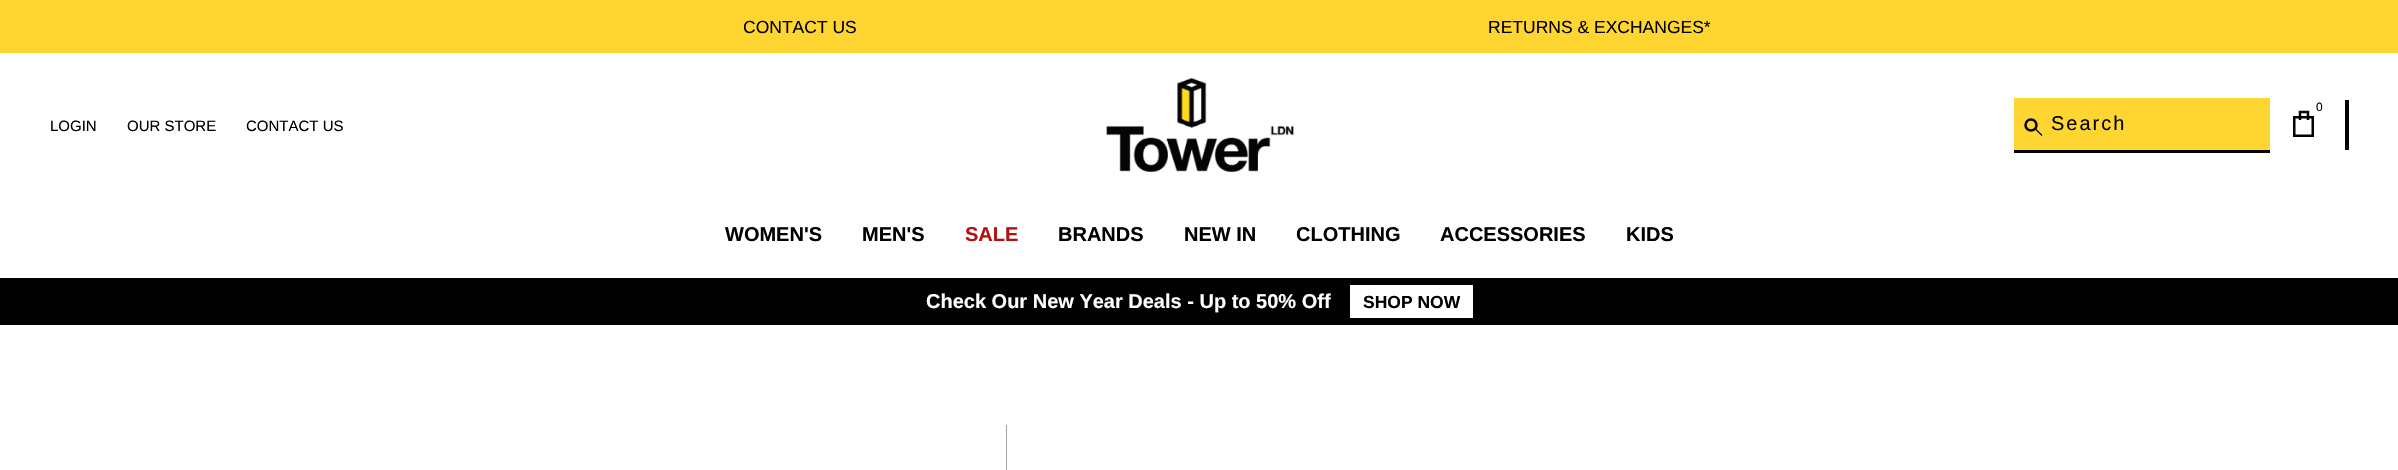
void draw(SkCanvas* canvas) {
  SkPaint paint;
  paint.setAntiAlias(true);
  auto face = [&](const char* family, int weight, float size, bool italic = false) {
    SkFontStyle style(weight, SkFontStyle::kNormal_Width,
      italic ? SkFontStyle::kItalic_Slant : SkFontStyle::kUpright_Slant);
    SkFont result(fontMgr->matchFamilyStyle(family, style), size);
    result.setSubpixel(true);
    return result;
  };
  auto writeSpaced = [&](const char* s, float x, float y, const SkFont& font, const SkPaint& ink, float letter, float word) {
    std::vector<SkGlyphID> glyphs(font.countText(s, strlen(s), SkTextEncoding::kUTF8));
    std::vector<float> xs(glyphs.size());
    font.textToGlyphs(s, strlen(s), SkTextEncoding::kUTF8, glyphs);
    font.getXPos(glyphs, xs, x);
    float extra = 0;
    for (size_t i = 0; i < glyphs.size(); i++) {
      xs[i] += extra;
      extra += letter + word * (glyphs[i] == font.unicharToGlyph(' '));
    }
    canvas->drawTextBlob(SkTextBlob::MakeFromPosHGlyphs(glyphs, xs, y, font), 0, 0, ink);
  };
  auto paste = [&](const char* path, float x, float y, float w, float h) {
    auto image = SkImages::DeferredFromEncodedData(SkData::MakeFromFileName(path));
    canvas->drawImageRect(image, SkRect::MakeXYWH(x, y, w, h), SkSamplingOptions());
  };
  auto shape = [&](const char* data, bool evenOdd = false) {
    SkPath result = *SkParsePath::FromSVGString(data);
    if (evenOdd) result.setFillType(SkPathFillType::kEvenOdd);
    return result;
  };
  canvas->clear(0xffffffff);
  paint.setColor(0xffffd531);
  canvas->drawRect(SkRect::MakeXYWH(0, 0, 2398, 53), paint);
  paste("img/1.png", 1106, 78, 188, 95);
  paint.setStroke(true);
  paint.setStrokeWidth(2.5f);
  paint.setColor(0xff000000);
  canvas->drawRect(SkRect::MakeXYWH(2294.25f, 117.25f, 18.5f, 18.5f), paint);
  canvas->drawPath(shape("M2300 120V112H2308V120"), paint);
  paint.setStroke(false);
  paint.setColor(0xff010101);
  canvas->drawRect(SkRect::MakeXYWH(2345, 100, 4, 50), paint);
  paint.setColor(0xffffd531);
  canvas->drawRect(SkRect::MakeXYWH(2014, 98, 256, 52), paint);
  paint.setStroke(true);
  paint.setColor(0xff000000);
  canvas->drawCircle(2031, 125, 5.5f, paint);
  paint.setStrokeWidth(1.2f);
  canvas->drawPath(shape("M2035.5 129L2042 135.5"), paint);
  paint.setStroke(false);
  {
    const struct { float x, y, w, h; SkColor color; } items[] = {
      {2014, 150, 256, 3, 0xff010101},
      {0, 278, 2398, 47, 0xff010101},
      {1350, 285, 123, 33, 0xffffffff},
      {1006, 425, 1, 45, 0xffa2a2a2},
    };
    for (auto [x, y, w, h, color] : items) {
      paint.setColor(color);
      canvas->drawRect(SkRect::MakeXYWH(x, y, w, h), paint);
    }
  }
  auto f0 = face("Liberation Sans", 400, 17.5f);
  paint.setColor(0xff000000);
  canvas->drawString("CONTACT US", 743, 33, f0, paint);
  canvas->drawString("RETURNS & EXCHANGES*", 1488, 33, f0, paint);
  auto f1 = face("Liberation Sans", 400, 15);
  {
    const struct { const char* s; float x, y; } items[] = {
      {"LOGIN", 50, 131},
      {"OUR STORE", 127, 131},
      {"CONTACT US", 246, 131},
    };
    for (auto [s, x, y] : items) {
      canvas->drawString(s, x, y, f1, paint);
    }
  }
  auto f2 = face("Liberation Sans", 400, 12);
  canvas->drawString("0", 2316, 111, f2, paint);
  auto f3 = face("Liberation Sans", 400, 20);
  writeSpaced("Search", 2051, 130, f3, paint, 2, 0);
  auto f4 = face("Liberation Sans", 700, 20);
  canvas->drawString("WOMEN'S", 725, 241, f4, paint);
  canvas->drawString("MEN'S", 862, 241, f4, paint);
  paint.setColor(0xffaf1313);
  canvas->drawString("SALE", 965, 241, f4, paint);
  paint.setColor(0xff000000);
  {
    const struct { const char* s; float x, y; } items[] = {
      {"BRANDS", 1058, 241},
      {"NEW IN", 1184, 241},
      {"CLOTHING", 1296, 241},
      {"ACCESSORIES", 1440, 241},
      {"KIDS", 1626, 241},
    };
    for (auto [s, x, y] : items) {
      canvas->drawString(s, x, y, f4, paint);
    }
  }
  paint.setColor(0xffffffff);
  canvas->drawString("Check Our New Year Deals - Up to 50% Off", 926, 308, f4, paint);
  auto f5 = face("Liberation Sans", 700, 17.5f);
  paint.setColor(0xff000000);
  canvas->drawString("SHOP NOW", 1363, 308, f5, paint);
}
